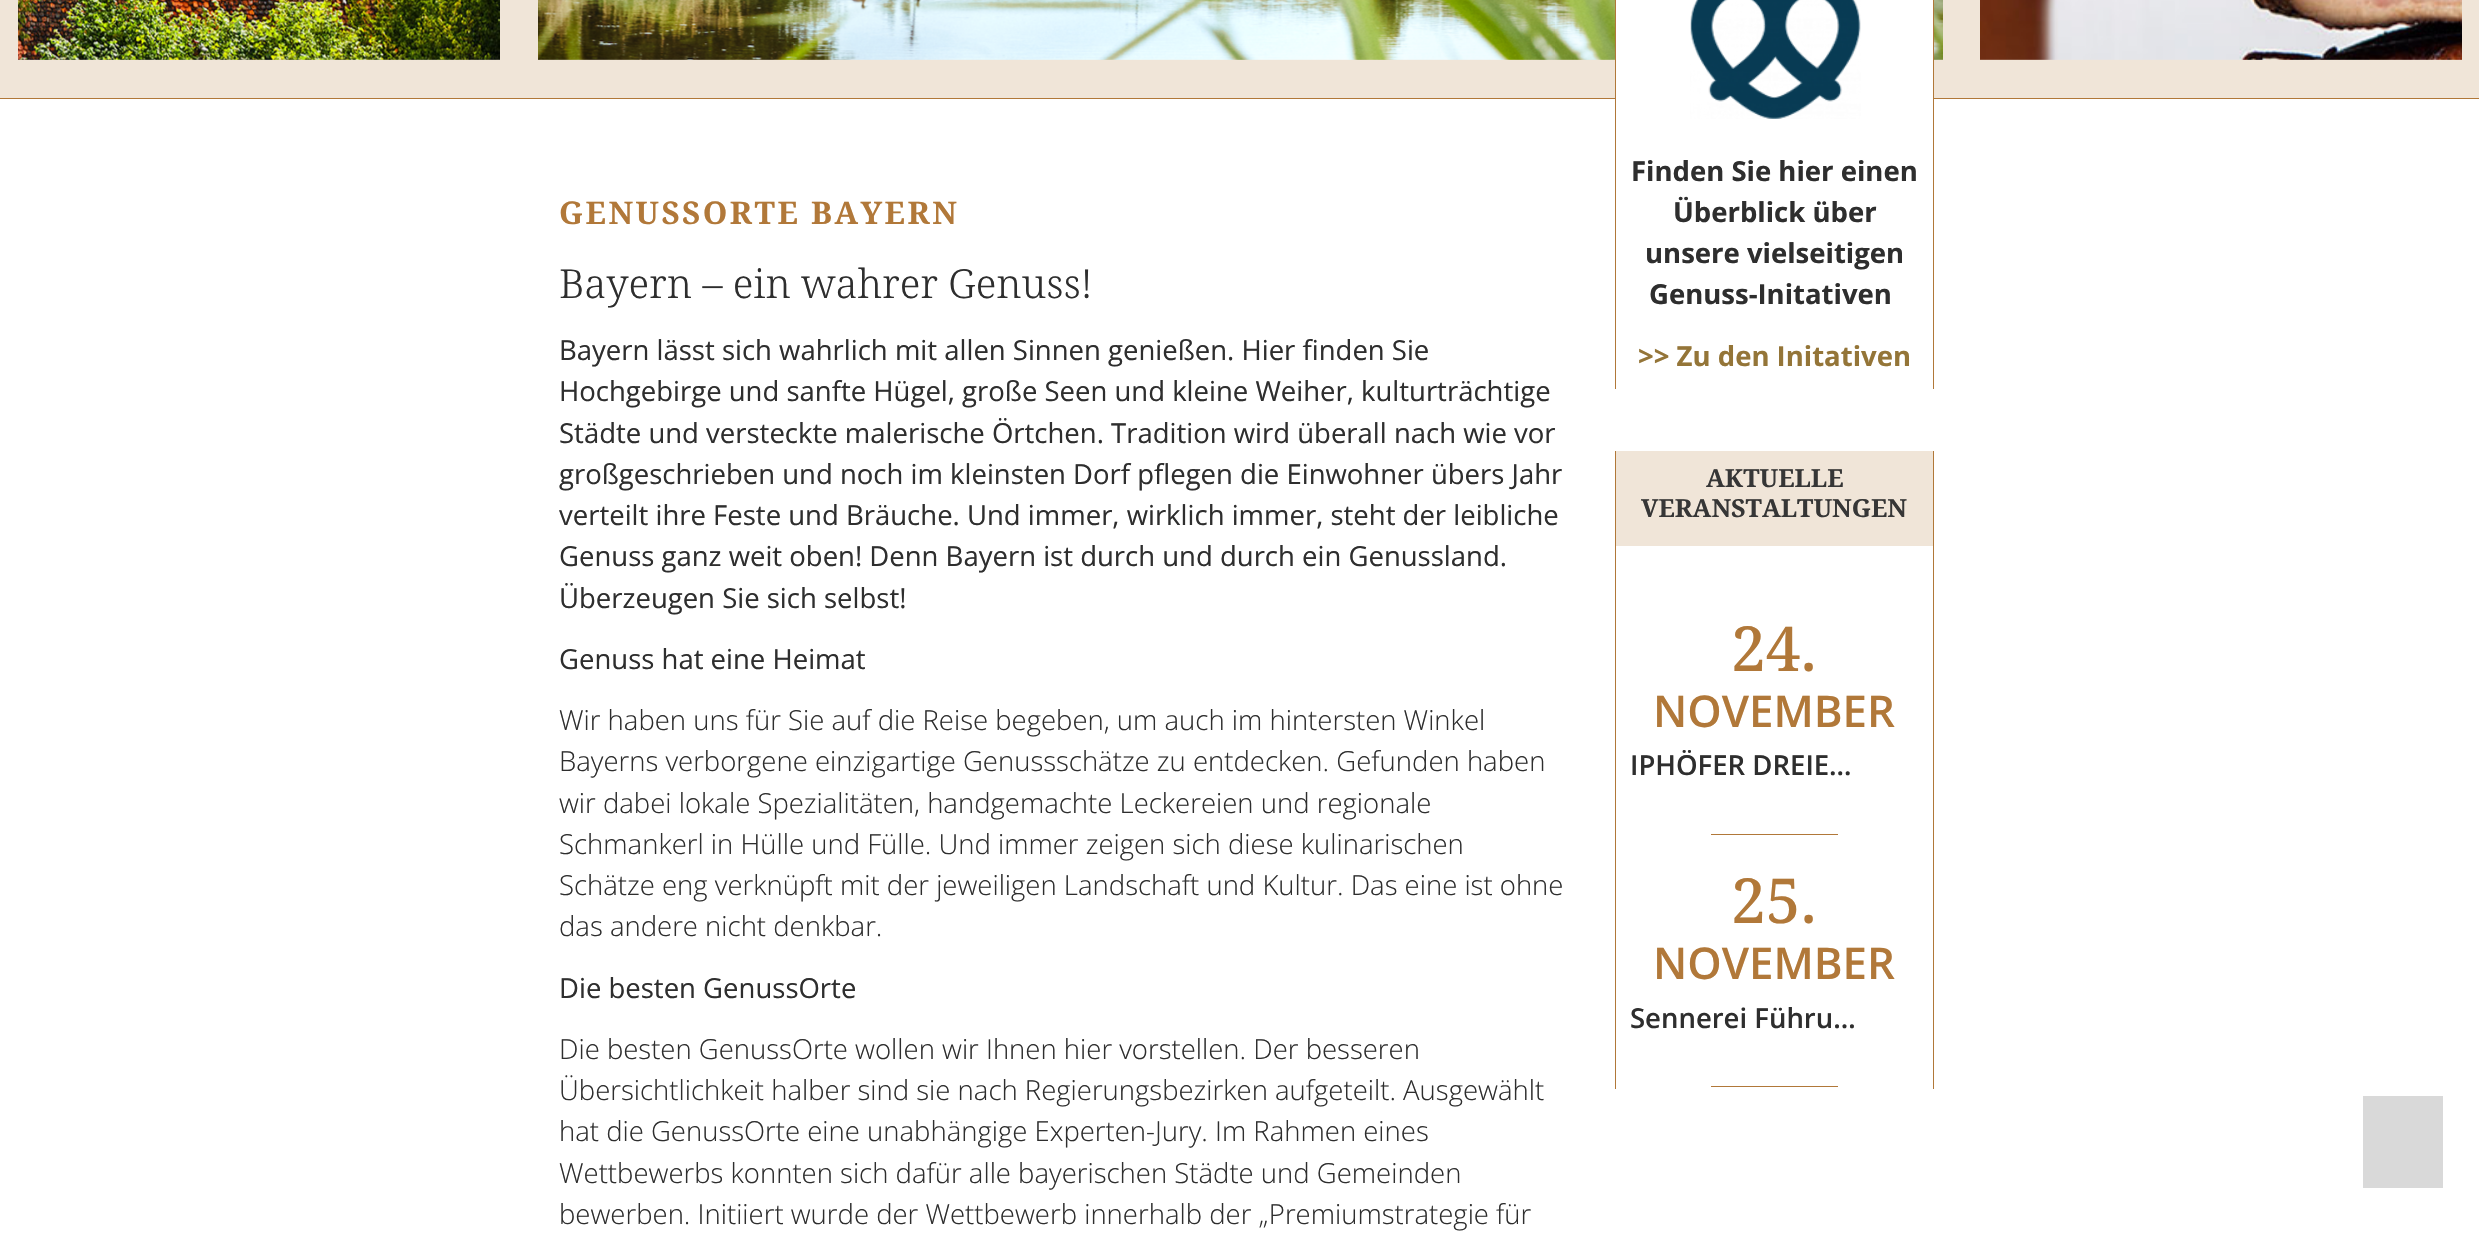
void draw(SkCanvas* canvas) {
  SkPaint paint;
  paint.setAntiAlias(true);
  auto face = [&](const char* family, int weight, float size, bool italic = false) {
    SkFontStyle style(weight, SkFontStyle::kNormal_Width,
      italic ? SkFontStyle::kItalic_Slant : SkFontStyle::kUpright_Slant);
    SkFont result(fontMgr->matchFamilyStyle(family, style), size);
    result.setSubpixel(true);
    return result;
  };
  auto writeSpaced = [&](const char* s, float x, float y, const SkFont& font, const SkPaint& ink, float letter, float word) {
    std::vector<SkGlyphID> glyphs(font.countText(s, strlen(s), SkTextEncoding::kUTF8));
    std::vector<float> xs(glyphs.size());
    font.textToGlyphs(s, strlen(s), SkTextEncoding::kUTF8, glyphs);
    font.getXPos(glyphs, xs, x);
    float extra = 0;
    for (size_t i = 0; i < glyphs.size(); i++) {
      xs[i] += extra;
      extra += letter + word * (glyphs[i] == font.unicharToGlyph(' '));
    }
    canvas->drawTextBlob(SkTextBlob::MakeFromPosHGlyphs(glyphs, xs, y, font), 0, 0, ink);
  };
  auto paste = [&](const char* path, float x, float y, float w, float h) {
    auto image = SkImages::DeferredFromEncodedData(SkData::MakeFromFileName(path));
    canvas->drawImageRect(image, SkRect::MakeXYWH(x, y, w, h), SkSamplingOptions());
  };
  canvas->clear(0xffffffff);
  paint.setColor(0xfff0e5d8);
  canvas->drawRect(SkRect::MakeXYWH(0, 0, 2479, 98), paint);
  paint.setColor(0xffb17839);
  canvas->drawRect(SkRect::MakeXYWH(0, 98, 2479, 1), paint);
  paste("img/1.png", 18, 0, 482, 60);
  paste("img/2.png", 538, 0, 1405, 60);
  paste("img/3.png", 1980, 0, 482, 60);
  {
    const struct { float x, y, w, h; SkColor color; } items[] = {
      {1616, 0, 317, 99, 0xffffffff},
      {1933, 0, 1, 389, 0xffb17839},
      {1615, 0, 1, 389, 0xffb17839},
    };
    for (auto [x, y, w, h, color] : items) {
      paint.setColor(color);
      canvas->drawRect(SkRect::MakeXYWH(x, y, w, h), paint);
    }
  }
  paste("img/4.png", 1690, 0, 171, 119);
  {
    const struct { float x, y, w, h; SkColor color; } items[] = {
      {1933, 451, 1, 638, 0xffb17839},
      {1615, 451, 1, 638, 0xffb17839},
      {1616, 451, 317, 95, 0xfff0e5d8},
      {1711, 834, 127, 1, 0xffb17839},
      {1711, 1086, 127, 1, 0xffb17839},
      {2363, 1096, 80, 92, 0xffd9d9d9},
    };
    for (auto [x, y, w, h, color] : items) {
      paint.setColor(color);
      canvas->drawRect(SkRect::MakeXYWH(x, y, w, h), paint);
    }
  }
  auto f0 = face("Noto Serif", 700, 31.25f);
  paint.setColor(0xffb17839);
  writeSpaced("GENUSSORTE BAYERN", 559, 224, f0, paint, 2.5f, 0);
  auto f1 = face("Noto Serif", 300, 40);
  paint.setColor(0xff2e2e2e);
  canvas->drawString("Bayern – ein wahrer Genuss!", 559, 298, f1, paint);
  auto f2 = face("Open Sans", 400, 27.5f);
  {
    const struct { const char* s; float x, y; } items[] = {
      {"Bayern lässt sich wahrlich mit allen Sinnen genießen. Hier finden Sie", 559, 360},
      {"Hochgebirge und sanfte Hügel, große Seen und kleine Weiher, kulturträchtige", 559, 401},
      {"Städte und versteckte malerische Örtchen. Tradition wird überall nach wie vor", 559, 443},
      {"großgeschrieben und noch im kleinsten Dorf pflegen die Einwohner übers Jahr", 559, 484},
      {"verteilt ihre Feste und Bräuche. Und immer, wirklich immer, steht der leibliche", 559, 525},
      {"Genuss ganz weit oben! Denn Bayern ist durch und durch ein Genussland.", 559, 566},
      {"Überzeugen Sie sich selbst!", 559, 608},
      {"Genuss hat eine Heimat", 559, 669},
    };
    for (auto [s, x, y] : items) {
      canvas->drawString(s, x, y, f2, paint);
    }
  }
  auto f3 = face("Open Sans", 300, 27.5f);
  {
    const struct { const char* s; float x, y; } items[] = {
      {"Wir haben uns für Sie auf die Reise begeben, um auch im hintersten Winkel", 559, 730},
      {"Bayerns verborgene einzigartige Genussschätze zu entdecken. Gefunden haben", 559, 771},
      {"wir dabei lokale Spezialitäten, handgemachte Leckereien und regionale", 559, 813},
      {"Schmankerl in Hülle und Fülle. Und immer zeigen sich diese kulinarischen", 559, 854},
      {"Schätze eng verknüpft mit der jeweiligen Landschaft und Kultur. Das eine ist ohne", 559, 895},
      {"das andere nicht denkbar.", 559, 936},
    };
    for (auto [s, x, y] : items) {
      canvas->drawString(s, x, y, f3, paint);
    }
  }
  canvas->drawString("Die besten GenussOrte", 559, 998, f2, paint);
  {
    const struct { const char* s; float x, y; } items[] = {
      {"Die besten GenussOrte wollen wir Ihnen hier vorstellen. Der besseren", 559, 1059},
      {"Übersichtlichkeit halber sind sie nach Regierungsbezirken aufgeteilt. Ausgewählt", 559, 1100},
      {"hat die GenussOrte eine unabhängige Experten-Jury. Im Rahmen eines", 559, 1141},
      {"Wettbewerbs konnten sich dafür alle bayerischen Städte und Gemeinden", 559, 1183},
      {"bewerben. Initiiert wurde der Wettbewerb innerhalb der „Premiumstrategie für", 559, 1224},
    };
    for (auto [s, x, y] : items) {
      canvas->drawString(s, x, y, f3, paint);
    }
  }
  auto f4 = face("Open Sans", 700, 27.5f);
  {
    const struct { const char* s; float x, y; } items[] = {
      {"Finden Sie hier einen", 1631, 181},
      {"Überblick über", 1673, 222},
      {"unsere vielseitigen", 1645, 263},
      {"Genuss-Initativen", 1649, 304},
    };
    for (auto [s, x, y] : items) {
      canvas->drawString(s, x, y, f4, paint);
    }
  }
  paint.setColor(0xff947538);
  canvas->drawString(">> Zu den Initativen", 1638, 366, f4, paint);
  auto f5 = face("Noto Serif", 700, 25);
  paint.setColor(0xff363636);
  canvas->drawString("AKTUELLE", 1706, 487, f5, paint);
  canvas->drawString("VERANSTALTUNGEN", 1641, 517, f5, paint);
  auto f6 = face("Noto Serif", 500, 62);
  paint.setColor(0xffb17839);
  canvas->drawString("24.", 1731, 671, f6, paint);
  auto f7 = face("Open Sans", 600, 43.75f);
  canvas->drawString("NOVEMBER", 1653, 727, f7, paint);
  auto f8 = face("Open Sans", 600, 27.5f);
  paint.setColor(0xff2e2e2e);
  canvas->drawString("IPHÖFER DREIE…", 1630, 775, f8, paint);
  paint.setColor(0xffb17839);
  canvas->drawString("25.", 1731, 923, f6, paint);
  canvas->drawString("NOVEMBER", 1653, 979, f7, paint);
  paint.setColor(0xff2e2e2e);
  canvas->drawString("Sennerei Führu…", 1630, 1028, f8, paint);
}
